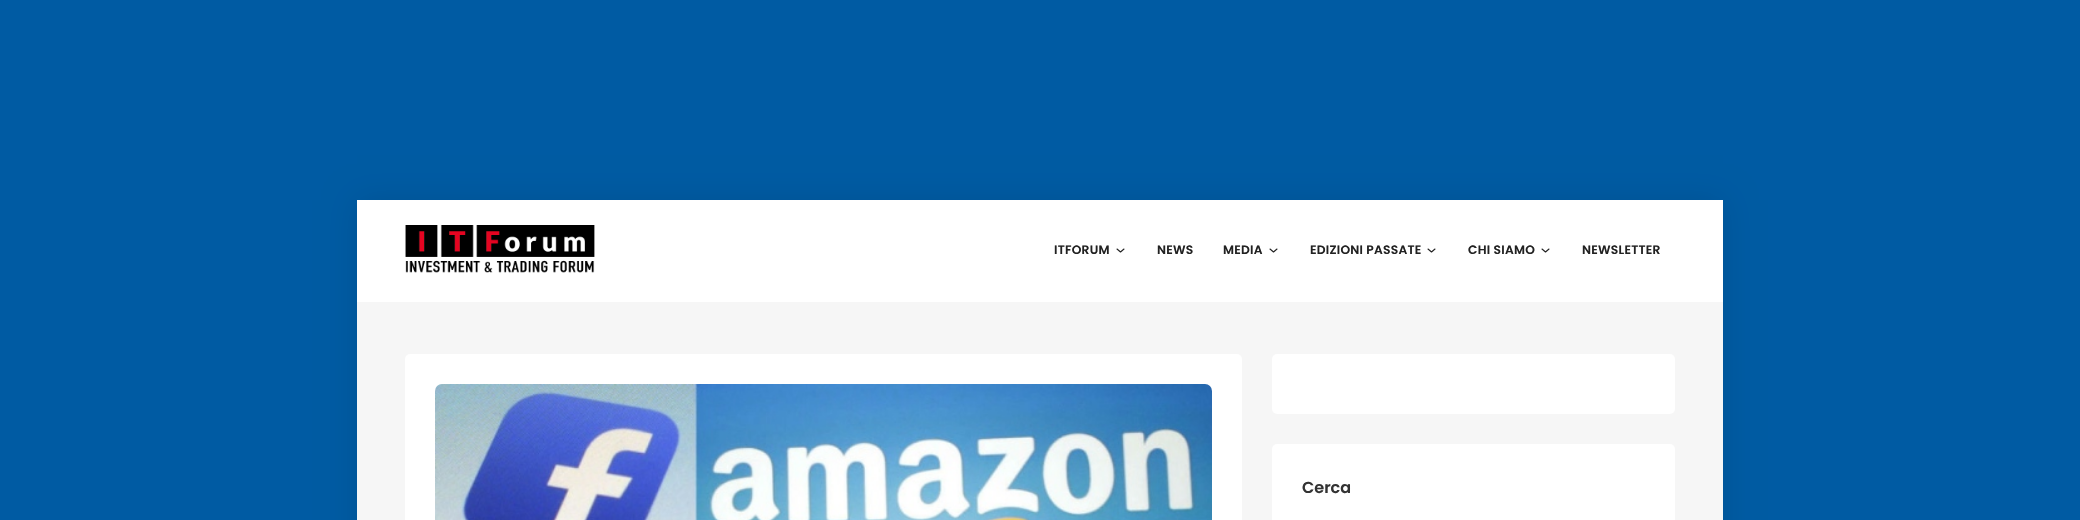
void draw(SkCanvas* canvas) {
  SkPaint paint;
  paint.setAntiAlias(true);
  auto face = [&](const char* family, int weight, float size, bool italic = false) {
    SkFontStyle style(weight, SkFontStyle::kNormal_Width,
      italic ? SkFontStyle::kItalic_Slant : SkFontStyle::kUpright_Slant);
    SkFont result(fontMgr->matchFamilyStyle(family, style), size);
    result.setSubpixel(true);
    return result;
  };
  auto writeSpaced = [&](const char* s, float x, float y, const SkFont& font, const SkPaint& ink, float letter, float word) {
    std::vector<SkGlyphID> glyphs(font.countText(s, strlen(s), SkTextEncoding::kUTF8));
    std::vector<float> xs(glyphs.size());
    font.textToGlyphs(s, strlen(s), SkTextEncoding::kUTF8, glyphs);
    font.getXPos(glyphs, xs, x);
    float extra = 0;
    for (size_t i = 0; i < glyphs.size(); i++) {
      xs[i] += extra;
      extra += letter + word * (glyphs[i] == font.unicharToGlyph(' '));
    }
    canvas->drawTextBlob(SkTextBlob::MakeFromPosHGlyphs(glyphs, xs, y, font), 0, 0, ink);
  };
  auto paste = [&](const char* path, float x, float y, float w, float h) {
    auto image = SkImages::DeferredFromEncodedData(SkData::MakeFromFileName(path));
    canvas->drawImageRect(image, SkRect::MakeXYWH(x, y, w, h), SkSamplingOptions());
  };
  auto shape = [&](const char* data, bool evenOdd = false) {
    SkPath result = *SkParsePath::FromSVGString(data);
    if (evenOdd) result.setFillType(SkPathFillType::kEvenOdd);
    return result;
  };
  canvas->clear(0xff005ba3);
  paint.setColor(0x1a000000);
  paint.setMaskFilter(SkMaskFilter::MakeBlur(kNormal_SkBlurStyle, 15));
  canvas->drawRect(SkRect::MakeXYWH(357, 200, 1366, 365), paint);
  paint.setMaskFilter(nullptr);
  paint.setColor(0xfff6f6f6);
  canvas->drawRect(SkRect::MakeXYWH(357, 302, 1366, 218), paint);
  paint.setColor(0xffffffff);
  canvas->drawRect(SkRect::MakeXYWH(357, 200, 1366, 102), paint);
  paste("img/1.png", 405, 225, 190, 48);
  paint.setStroke(true);
  paint.setStrokeWidth(1.1f);
  paint.setStrokeCap(SkPaint::kRound_Cap);
  paint.setStrokeJoin(SkPaint::kRound_Join);
  paint.setColor(0xff222222);
  canvas->drawPath(shape("M1117 249L1120.5 252L1124 249"), paint);
  canvas->drawPath(shape("M1270 249L1273.5 252L1277 249"), paint);
  canvas->drawPath(shape("M1428 249L1431.5 252L1435 249"), paint);
  canvas->drawPath(shape("M1542 249L1545.5 252L1549 249"), paint);
  paint.setStroke(false);
  paint.setColor(0xffffffff);
  canvas->drawRoundRect(SkRect::MakeXYWH(405, 354, 837, 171), 5, 5, paint);
  paste("img/2.png", 435, 384, 777, 136);
  canvas->drawRoundRect(SkRect::MakeXYWH(1272, 354, 403, 60), 5, 5, paint);
  canvas->drawRoundRect(SkRect::MakeXYWH(1272, 444, 403, 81), 5, 5, paint);
  auto f0 = face("Poppins", 600, 12.25f);
  paint.setColor(0xff222222);
  {
    const struct { const char* s; float x, y; } items[] = {
      {"ITFORUM", 1054, 254},
      {"NEWS", 1157, 254},
      {"MEDIA", 1223, 254},
      {"EDIZIONI PASSATE", 1310, 254},
      {"CHI SIAMO", 1468, 254},
      {"NEWSLETTER", 1582, 254},
    };
    for (auto [s, x, y] : items) {
      writeSpaced(s, x, y, f0, paint, 0.25f, 0);
    }
  }
  auto f1 = face("Poppins", 600, 16);
  paint.setColor(0xff333333);
  canvas->drawString("Cerca", 1302, 493, f1, paint);
}
